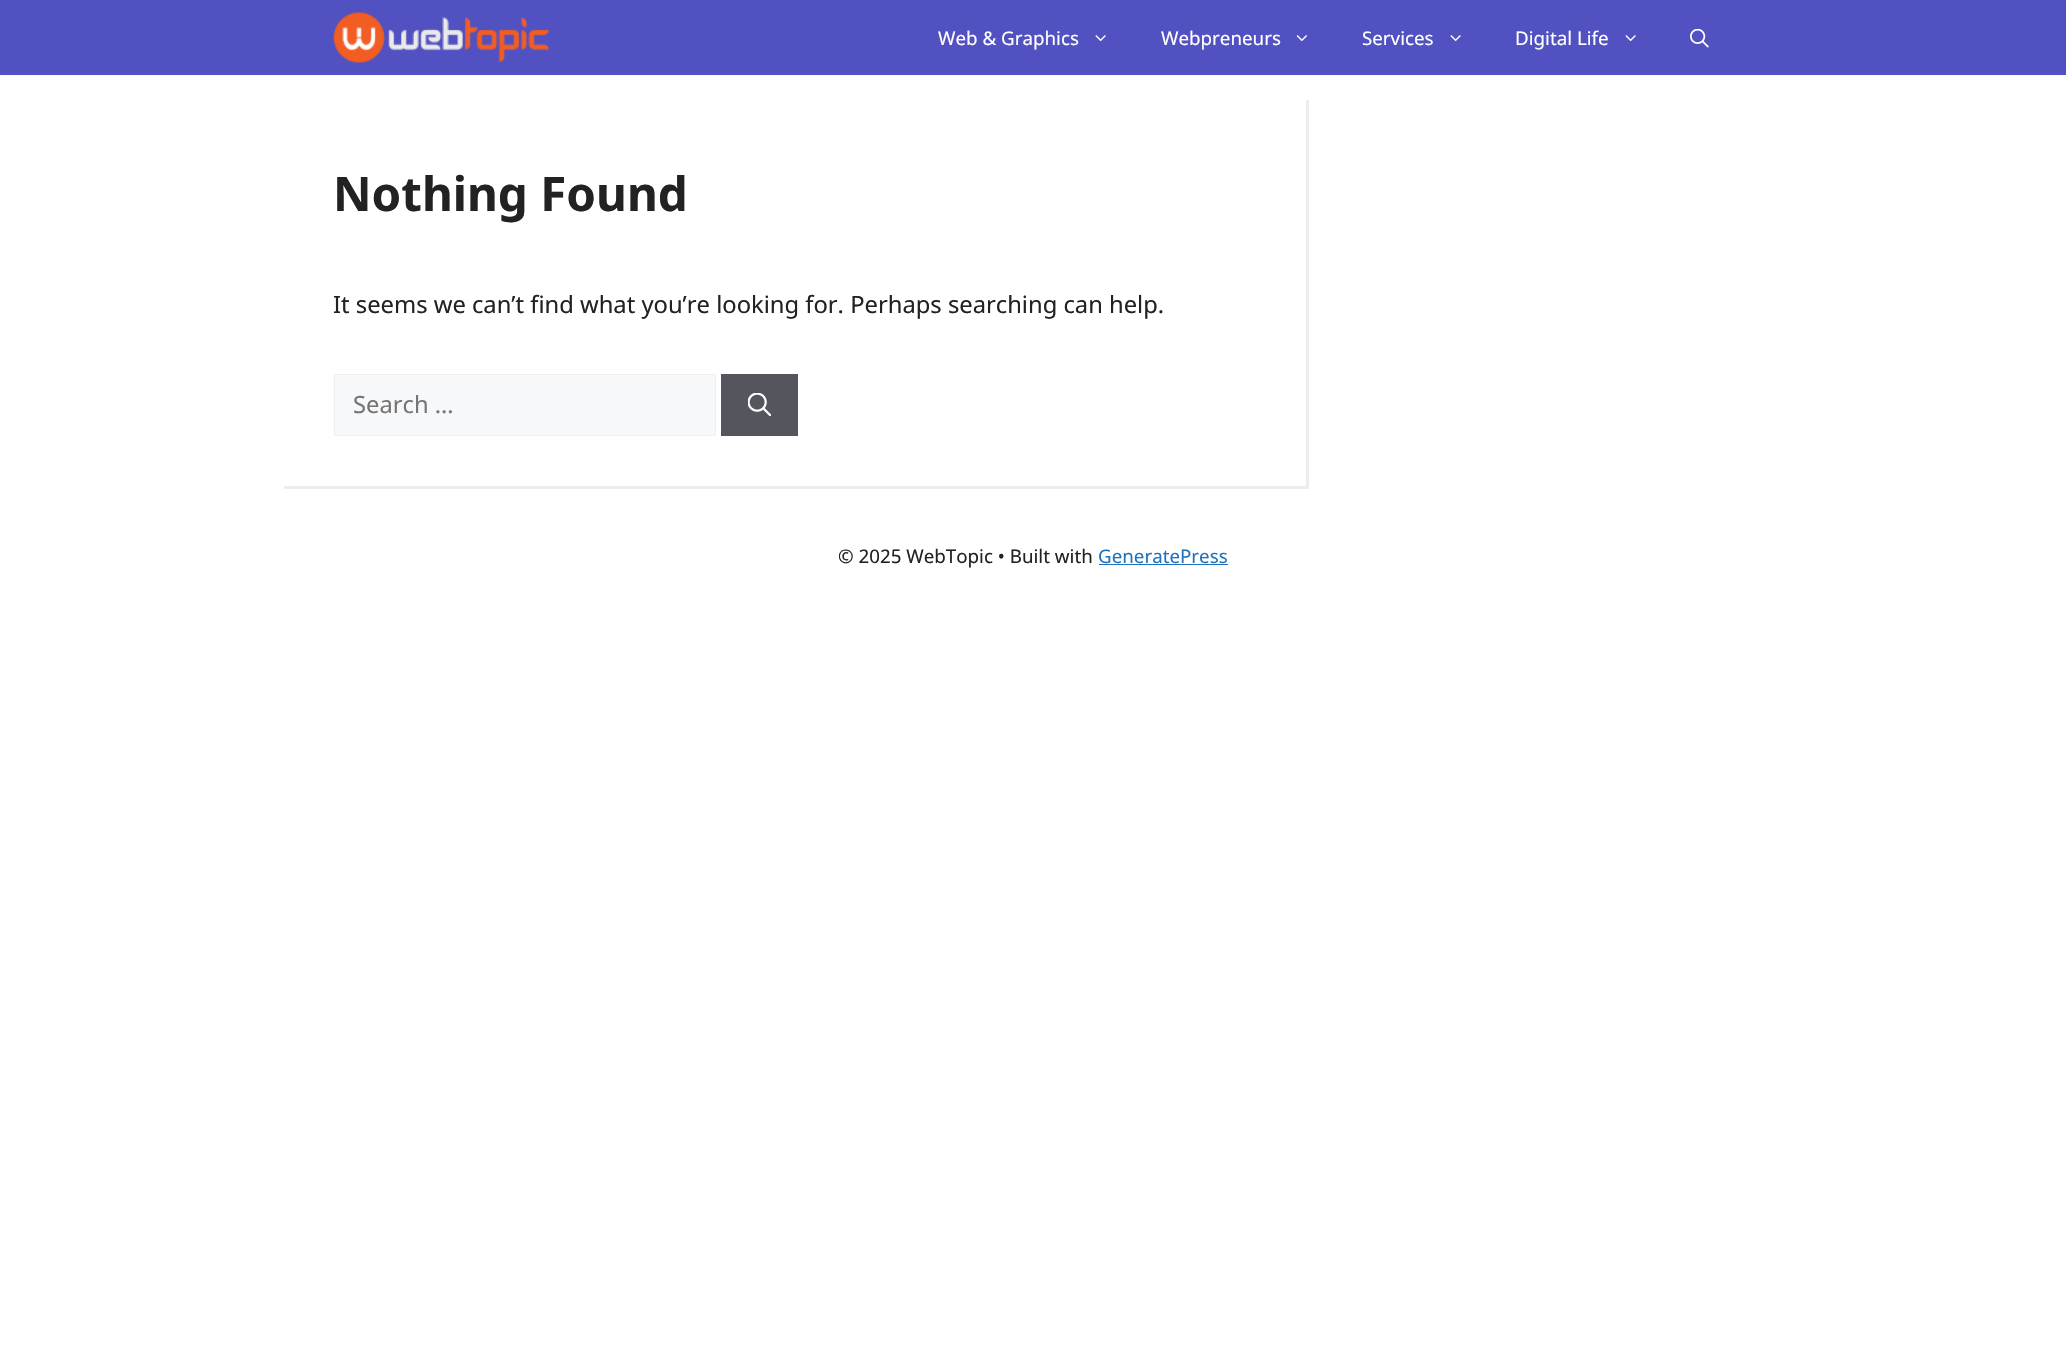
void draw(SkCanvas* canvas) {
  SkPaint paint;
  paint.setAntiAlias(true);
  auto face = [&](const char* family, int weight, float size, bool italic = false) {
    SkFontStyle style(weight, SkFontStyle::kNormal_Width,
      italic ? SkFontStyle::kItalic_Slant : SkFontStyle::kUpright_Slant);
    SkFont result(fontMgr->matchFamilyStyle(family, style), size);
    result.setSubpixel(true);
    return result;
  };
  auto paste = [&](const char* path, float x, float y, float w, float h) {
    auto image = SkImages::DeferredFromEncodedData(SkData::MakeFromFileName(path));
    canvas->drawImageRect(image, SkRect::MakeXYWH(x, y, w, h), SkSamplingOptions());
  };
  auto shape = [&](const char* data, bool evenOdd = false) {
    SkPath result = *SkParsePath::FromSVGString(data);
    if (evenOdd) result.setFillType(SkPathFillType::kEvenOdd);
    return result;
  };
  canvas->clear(0xffffffff);
  paint.setColor(0xff5151c2);
  canvas->drawRect(SkRect::MakeXYWH(0, 0, 2066, 75), paint);
  paste("img/1.png", 333, 12, 216, 51);
  paste("img/2.png", 1095, 35, 11, 7);
  paste("img/3.png", 1296, 35, 11, 7);
  paste("img/2.png", 1450, 35, 11, 7);
  paste("img/2.png", 1625, 35, 11, 7);
  paste("img/4.png", 1690, 29, 19, 19);
  paint.setColor(0xffededed);
  canvas->drawPath(shape("M1309 100V489L1306 486V100Z"), paint);
  paint.setColor(0x12000000);
  canvas->drawPath(shape("M1309 489H284V486H1306Z"), paint);
  paint.setColor(0xfff7f8f9);
  canvas->drawRect(SkRect::MakeXYWH(334.5f, 374.5f, 381, 61), paint);
  paint.setStroke(true);
  paint.setStrokeWidth(1);
  paint.setColor(0xfff0f0f0);
  canvas->drawRect(SkRect::MakeXYWH(334.5f, 374.5f, 381, 61), paint);
  paint.setStroke(false);
  paint.setColor(0xff55555e);
  canvas->drawRect(SkRect::MakeXYWH(721, 374, 77, 62), paint);
  paste("img/5.png", 748, 393, 23, 23);
  paint.setColor(0xff1e73be);
  canvas->drawRect(SkRect::MakeXYWH(1099, 564, 129, 1), paint);
  auto f0 = face("Noto Sans", 400, 18.75f);
  paint.setColor(0xffffffff);
  {
    const struct { const char* s; float x, y; } items[] = {
      {"Web & Graphics", 938, 45},
      {"Webpreneurs", 1161, 45},
      {"Services", 1362, 45},
      {"Digital Life", 1515, 45},
    };
    for (auto [s, x, y] : items) {
      canvas->drawString(s, x, y, f0, paint);
    }
  }
  auto f1 = face("Noto Sans", 700, 47.5f);
  paint.setColor(0xff222222);
  canvas->drawString("Nothing Found", 333, 211, f1, paint);
  auto f2 = face("Noto Sans", 400, 23.75f);
  canvas->drawString("It seems we can’t find what you’re looking for. Perhaps searching can help.", 333, 313, f2, paint);
  paint.setColor(0xff757575);
  canvas->drawString("Search …", 353, 413, f2, paint);
  paint.setColor(0xff222222);
  canvas->drawString("© 2025 WebTopic • Built with", 838, 563, f0, paint);
  paint.setColor(0xff1e73be);
  canvas->drawString("GeneratePress", 1098, 563, f0, paint);
}
